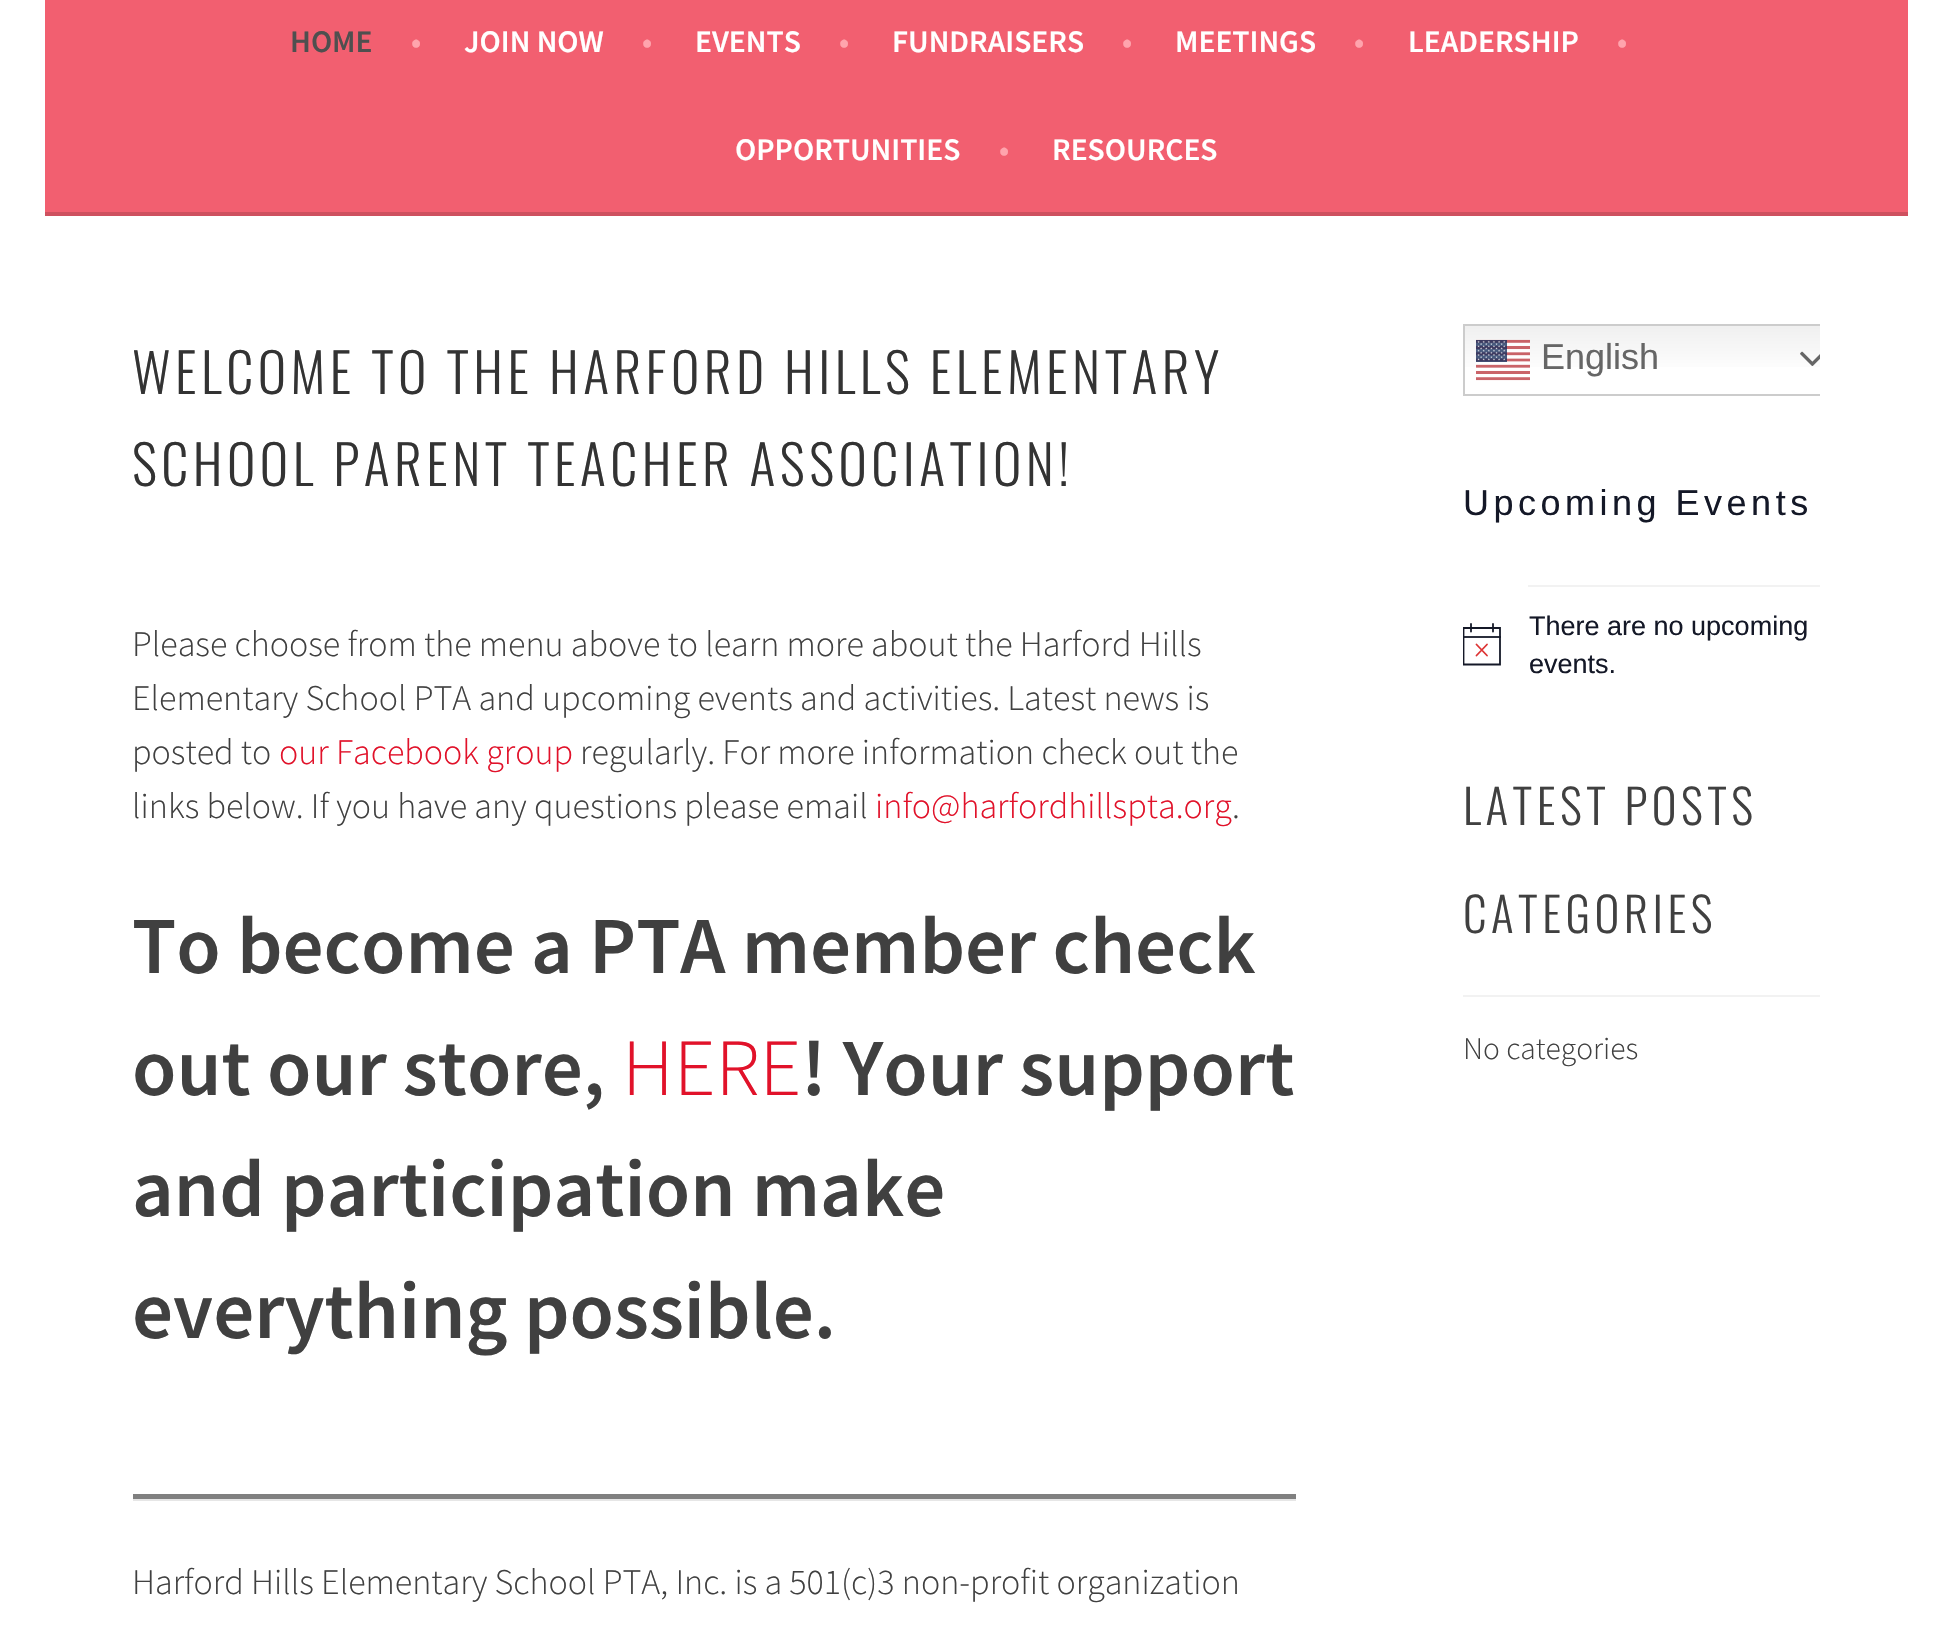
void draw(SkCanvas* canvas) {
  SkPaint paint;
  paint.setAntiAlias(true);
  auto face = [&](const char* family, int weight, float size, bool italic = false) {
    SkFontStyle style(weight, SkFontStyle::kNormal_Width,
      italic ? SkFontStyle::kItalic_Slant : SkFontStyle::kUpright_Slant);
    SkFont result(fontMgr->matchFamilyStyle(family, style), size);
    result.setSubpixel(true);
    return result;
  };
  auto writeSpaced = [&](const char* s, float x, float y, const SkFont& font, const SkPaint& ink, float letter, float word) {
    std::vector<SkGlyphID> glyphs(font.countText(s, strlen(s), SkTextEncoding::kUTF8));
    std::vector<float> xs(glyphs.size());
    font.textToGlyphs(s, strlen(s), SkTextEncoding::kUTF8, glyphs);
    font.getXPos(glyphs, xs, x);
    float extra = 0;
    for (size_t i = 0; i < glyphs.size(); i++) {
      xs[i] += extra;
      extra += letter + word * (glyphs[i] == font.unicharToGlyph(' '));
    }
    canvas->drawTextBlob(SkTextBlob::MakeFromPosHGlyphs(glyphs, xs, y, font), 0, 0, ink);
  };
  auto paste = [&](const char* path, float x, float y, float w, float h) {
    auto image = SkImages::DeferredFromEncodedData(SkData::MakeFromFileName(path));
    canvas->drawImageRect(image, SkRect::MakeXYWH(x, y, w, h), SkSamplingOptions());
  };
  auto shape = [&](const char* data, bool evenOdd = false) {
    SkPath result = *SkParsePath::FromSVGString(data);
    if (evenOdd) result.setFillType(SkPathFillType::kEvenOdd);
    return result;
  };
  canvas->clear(0xffffffff);
  {
    const struct { float x, y, w, h; SkColor color; } items[] = {
      {45, 0, 1863, 212, 0xfff25f70},
      {45, 212, 1863, 4, 0xffce515f},
      {133, 1499, 1163, 2, 0xffe6e6e6},
      {133, 1494, 1163, 5, 0xff808080},
    };
    for (auto [x, y, w, h, color] : items) {
      paint.setColor(color);
      canvas->drawRect(SkRect::MakeXYWH(x, y, w, h), paint);
    }
  }
  {
    const SkColor colors[] = {0xffefefef, 0xffffffff};
    const float stops[] = {0, 0.7f};
    const SkPoint ends[] = {{1657, 324}, {1657, 396}};
    paint.setShader(SkGradientShader::MakeLinear(ends, colors, stops, 2, SkTileMode::kClamp));
    paint.setAlpha(255);
  }
  canvas->drawRect(SkRect::MakeXYWH(1465, 326, 355, 41), paint);
  canvas->save();
  canvas->clipRect(SkRect::MakeXYWH(1463, 324, 357, 72));
  paint.setStroke(true);
  paint.setStrokeWidth(2);
  paint.setShader(nullptr);
  paint.setColor(0xffcccccc);
  canvas->drawRect(SkRect::MakeXYWH(1464, 325, 387, 70), paint);
  canvas->restore();
  paste("img/1.png", 1476, 339, 54, 42);
  paste("img/2.png", 1800, 351, 20, 15);
  canvas->save();
  canvas->clipRect(SkRect::MakeXYWH(1463, 623, 38, 43));
  paint.setStrokeWidth(1.8f);
  paint.setColor(0xff141827);
  canvas->drawPath(shape("M1463.5 628H1500V664.5H1463.5Z"), paint);
  canvas->restore();
  paint.setStrokeCap(SkPaint::kRound_Cap);
  paint.setColor(0xffdd3333);
  canvas->drawPath(shape("M1476.5 644.5L1487 655.5M1487 644.5L1476.5 655.5"), paint);
  paint.setColor(0xff141827);
  canvas->drawPath(shape("M1471 624V631.5M1493 624V631.5"), paint);
  paint.setStroke(false);
  {
    const struct { float x, y, w, h; SkColor color; } items[] = {
      {1463, 636, 38, 2, 0xe6141827},
      {1528, 585, 292, 2, 0xfff2f2f2},
      {1463, 995, 357, 2, 0xfff2f2f2},
    };
    for (auto [x, y, w, h, color] : items) {
      paint.setColor(color);
      canvas->drawRect(SkRect::MakeXYWH(x, y, w, h), paint);
    }
  }
  auto f0 = face("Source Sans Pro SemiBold", 600, 31.5f);
  paint.setColor(0xff4f4f4f);
  canvas->drawString("HOME", 290, 52, f0, paint);
  paint.setColor(0xffffa4ad);
  canvas->drawString("•", 411, 52, f0, paint);
  paint.setColor(0xffffffff);
  canvas->drawString("JOIN NOW", 464, 52, f0, paint);
  paint.setColor(0xffffa4ad);
  canvas->drawString("•", 642, 52, f0, paint);
  paint.setColor(0xffffffff);
  canvas->drawString("EVENTS", 695, 52, f0, paint);
  paint.setColor(0xffffa4ad);
  canvas->drawString("•", 839, 52, f0, paint);
  paint.setColor(0xffffffff);
  canvas->drawString("FUNDRAISERS", 892, 52, f0, paint);
  paint.setColor(0xffffa4ad);
  canvas->drawString("•", 1122, 52, f0, paint);
  paint.setColor(0xffffffff);
  canvas->drawString("MEETINGS", 1175, 52, f0, paint);
  paint.setColor(0xffffa4ad);
  canvas->drawString("•", 1354, 52, f0, paint);
  paint.setColor(0xffffffff);
  canvas->drawString("LEADERSHIP", 1408, 52, f0, paint);
  paint.setColor(0xffffa4ad);
  canvas->drawString("•", 1617, 52, f0, paint);
  paint.setColor(0xffffffff);
  canvas->drawString("OPPORTUNITIES", 735, 160, f0, paint);
  paint.setColor(0xffffa4ad);
  canvas->drawString("•", 999, 160, f0, paint);
  paint.setColor(0xffffffff);
  canvas->drawString("RESOURCES", 1052, 160, f0, paint);
  auto f1 = face("Oswald", 300, 54);
  paint.setColor(0xff333333);
  writeSpaced("WELCOME TO THE HARFORD HILLS ELEMENTARY", 132, 394, f1, paint, 4.5f, 0);
  writeSpaced("SCHOOL PARENT TEACHER ASSOCIATION!", 132, 486, f1, paint, 4.5f, 0);
  auto f2 = face("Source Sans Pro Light", 300, 36);
  paint.setColor(0xff404040);
  {
    const struct { const char* s; float x, y; } items[] = {
      {"Please choose from the menu above to learn more about the Harford Hills", 132, 656},
      {"Elementary School PTA and upcoming events and activities. Latest news is", 132, 710},
      {"posted to", 132, 764},
    };
    for (auto [s, x, y] : items) {
      canvas->drawString(s, x, y, f2, paint);
    }
  }
  paint.setColor(0xffe1122a);
  canvas->drawString("our Facebook group", 279, 764, f2, paint);
  paint.setColor(0xff404040);
  canvas->drawString("regularly. For more information check out the", 580, 764, f2, paint);
  canvas->drawString("links below. If you have any questions please email", 132, 818, f2, paint);
  paint.setColor(0xffe1122a);
  canvas->drawString("info@harfordhillspta.org", 875, 818, f2, paint);
  paint.setColor(0xff404040);
  canvas->drawString(".", 1232, 818, f2, paint);
  auto f3 = face("Source Sans Pro SemiBold", 600, 81);
  canvas->drawString("To become a PTA member check", 132, 973, f3, paint);
  canvas->drawString("out our store,", 132, 1095, f3, paint);
  auto f4 = face("Source Sans Pro Light", 300, 81);
  paint.setColor(0xffe1122a);
  canvas->drawString("HERE", 622, 1095, f4, paint);
  paint.setColor(0xff404040);
  {
    const struct { const char* s; float x, y; } items[] = {
      {"! Your support", 801, 1095},
      {"and participation make", 132, 1216},
      {"everything possible.", 132, 1338},
    };
    for (auto [s, x, y] : items) {
      canvas->drawString(s, x, y, f3, paint);
    }
  }
  canvas->drawString("Harford Hills Elementary School PTA, Inc. is a 501(c)3 non-profit organization", 132, 1594, f2, paint);
  auto f5 = face("Liberation Sans", 400, 36);
  paint.setColor(0xff666666);
  canvas->drawString("English", 1541, 369, f5, paint);
  paint.setColor(0xff141827);
  writeSpaced("Upcoming Events", 1463, 515, f5, paint, 4.5f, 0);
  auto f6 = face("Liberation Sans", 400, 27);
  canvas->drawString("There are no upcoming", 1529, 635, f6, paint);
  canvas->drawString("events.", 1529, 673, f6, paint);
  auto f7 = face("Oswald", 300, 47.25f);
  paint.setColor(0xff404040);
  writeSpaced("LATEST POSTS", 1463, 825, f7, paint, 4.5f, 0);
  writeSpaced("CATEGORIES", 1463, 933, f7, paint, 4.5f, 0);
  auto f8 = face("Source Sans Pro Light", 300, 31.5f);
  canvas->drawString("No categories", 1463, 1059, f8, paint);
}
